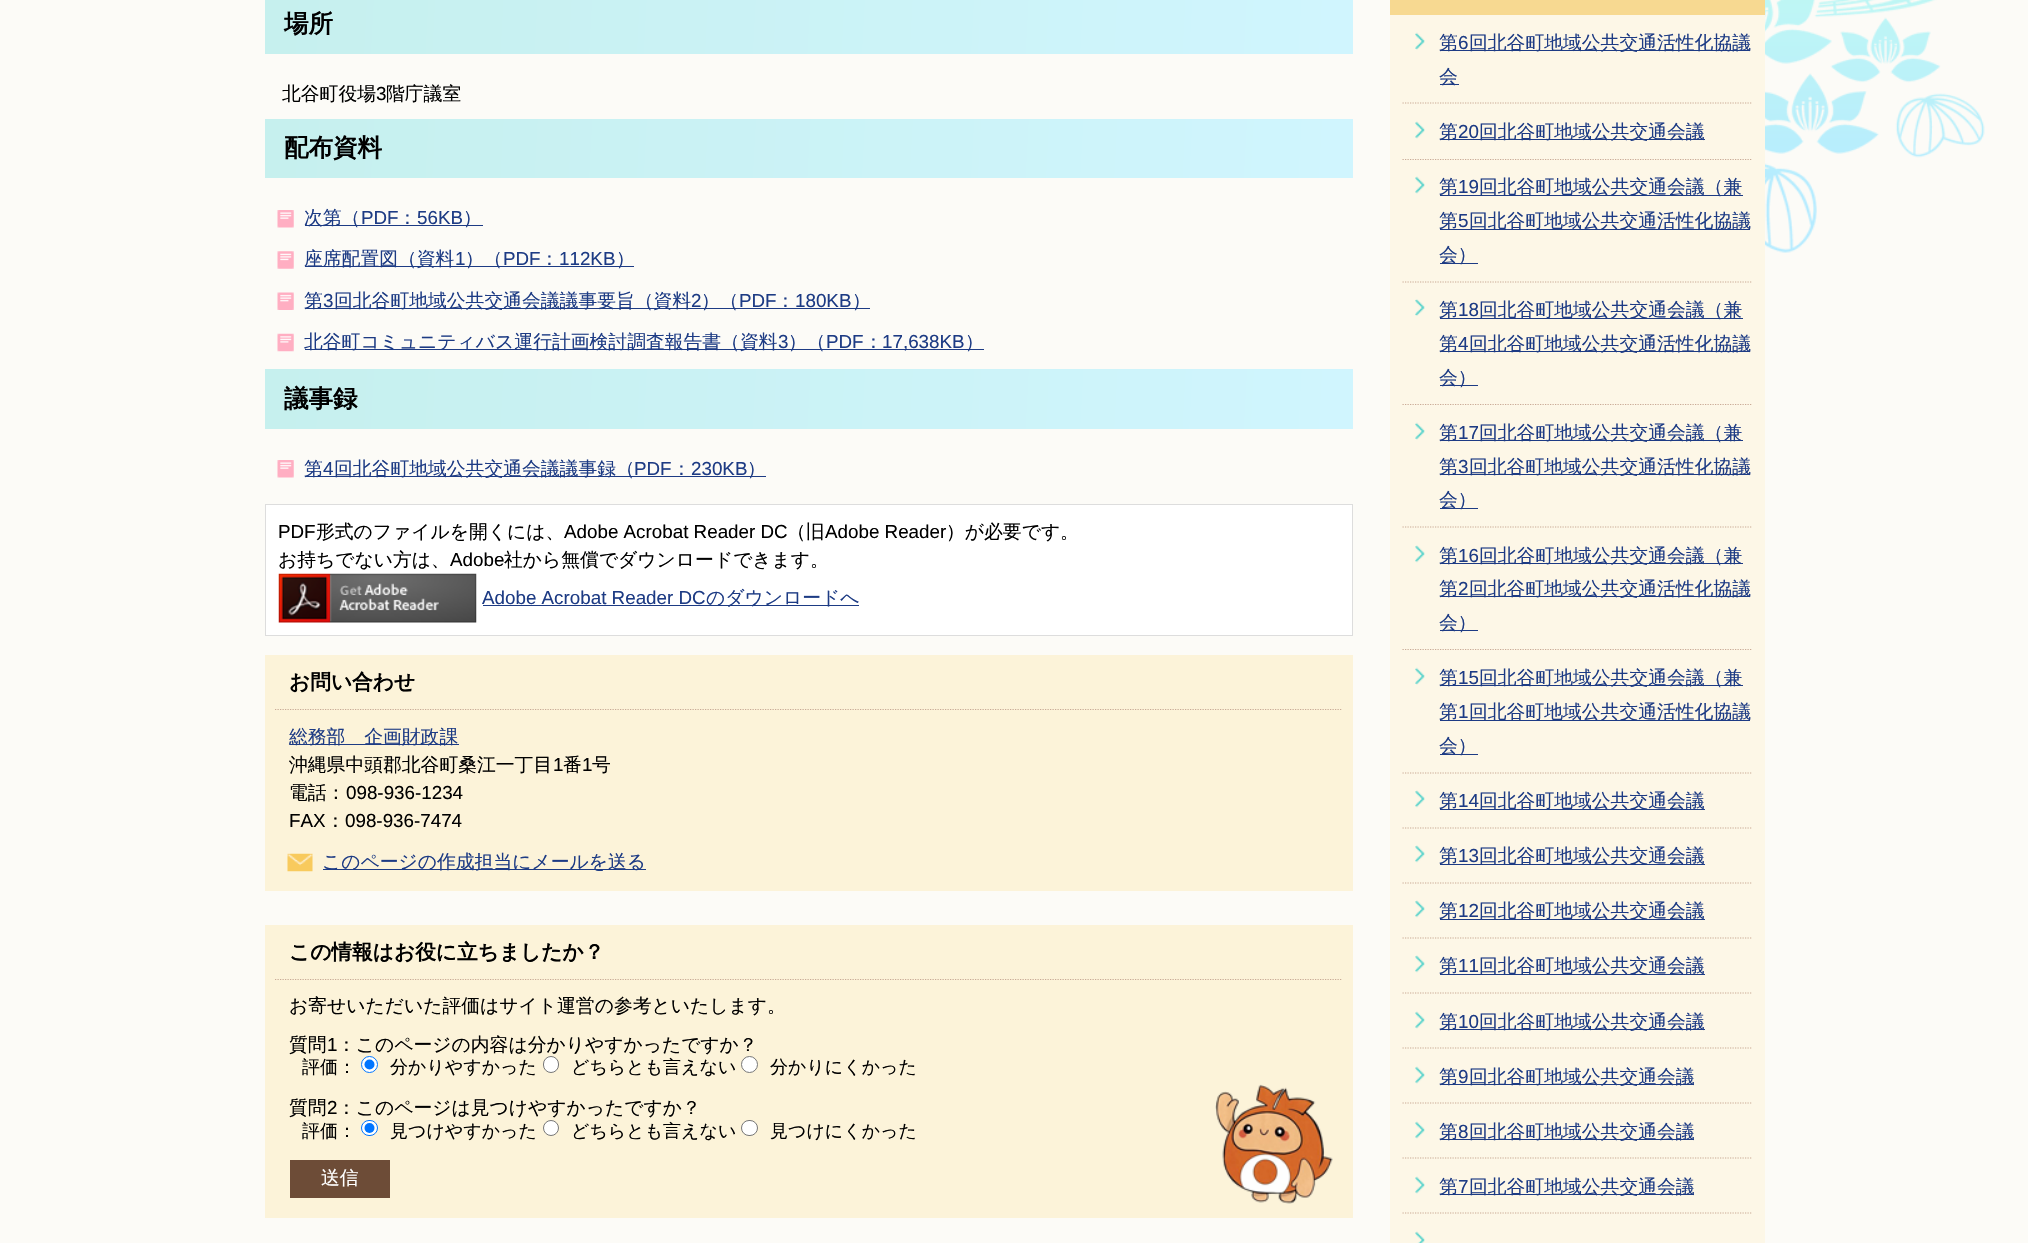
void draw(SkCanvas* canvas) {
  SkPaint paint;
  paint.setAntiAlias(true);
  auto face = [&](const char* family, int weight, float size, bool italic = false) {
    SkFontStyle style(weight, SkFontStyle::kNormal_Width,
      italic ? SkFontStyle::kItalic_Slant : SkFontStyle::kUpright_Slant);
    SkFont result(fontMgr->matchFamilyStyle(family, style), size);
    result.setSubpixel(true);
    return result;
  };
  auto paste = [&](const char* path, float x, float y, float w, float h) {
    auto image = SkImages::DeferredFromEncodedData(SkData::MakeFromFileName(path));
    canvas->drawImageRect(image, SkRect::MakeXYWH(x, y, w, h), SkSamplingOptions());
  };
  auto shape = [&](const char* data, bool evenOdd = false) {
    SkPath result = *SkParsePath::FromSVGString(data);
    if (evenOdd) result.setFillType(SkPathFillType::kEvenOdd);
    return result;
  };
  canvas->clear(0xfffcfbf7);
  paste("img/1.png", 1765, 0, 220, 253);
  {
    const SkColor colors[] = {0xffc6f0ee, 0xffd0f5fe};
    const float stops[] = {0, 1};
    const SkPoint ends[] = {{265, -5}, {1353, 54}};
    paint.setShader(SkGradientShader::MakeLinear(ends, colors, stops, 2, SkTileMode::kClamp));
    paint.setAlpha(255);
  }
  canvas->drawRect(SkRect::MakeXYWH(265, 0, 1088, 54), paint);
  {
    const SkColor colors[] = {0xffc6f0ee, 0xffd0f5fe};
    const float stops[] = {0, 1};
    const SkPoint ends[] = {{265, 119}, {1353, 178}};
    paint.setShader(SkGradientShader::MakeLinear(ends, colors, stops, 2, SkTileMode::kClamp));
    paint.setAlpha(255);
  }
  canvas->drawRect(SkRect::MakeXYWH(265, 119, 1088, 59), paint);
  paste("img/2.png", 277, 210, 17, 18);
  paint.setShader(nullptr);
  paint.setColor(0xff1d3b84);
  canvas->drawRect(SkRect::MakeXYWH(305, 225, 178, 1), paint);
  paste("img/3.png", 277, 251, 17, 18);
  canvas->drawRect(SkRect::MakeXYWH(305, 266, 329, 1), paint);
  paste("img/4.png", 277, 292, 17, 18);
  canvas->drawRect(SkRect::MakeXYWH(305, 308, 565, 1), paint);
  paste("img/5.png", 277, 333, 17, 19);
  canvas->drawRect(SkRect::MakeXYWH(305, 349, 679, 1), paint);
  {
    const SkColor colors[] = {0xffc6f0ee, 0xffd0f5fe};
    const float stops[] = {0, 1};
    const SkPoint ends[] = {{265, 369}, {1353, 429}};
    paint.setShader(SkGradientShader::MakeLinear(ends, colors, stops, 2, SkTileMode::kClamp));
    paint.setAlpha(255);
  }
  canvas->drawRect(SkRect::MakeXYWH(265, 369, 1088, 60), paint);
  paste("img/2.png", 277, 460, 17, 18);
  paint.setShader(nullptr);
  paint.setColor(0xff1d3b84);
  canvas->drawRect(SkRect::MakeXYWH(305, 476, 461, 1), paint);
  paint.setColor(0xffffffff);
  canvas->drawRect(SkRect::MakeXYWH(265.5f, 504.5f, 1087, 131), paint);
  paint.setStroke(true);
  paint.setStrokeWidth(1);
  paint.setColor(0xffdddddd);
  canvas->drawRect(SkRect::MakeXYWH(265.5f, 504.5f, 1087, 131), paint);
  paste("img/6.png", 278, 573, 199, 50);
  paint.setStroke(false);
  paint.setColor(0xff1d3b84);
  canvas->drawRect(SkRect::MakeXYWH(483, 605, 376, 1), paint);
  paint.setColor(0xfffcf3d9);
  canvas->drawRect(SkRect::MakeXYWH(265, 655, 1088, 236), paint);
  paint.setStroke(true);
  paint.setStrokeWidth(1.2f);
  paint.setColor(0xffc9aa96);
  paint.setPathEffect(SkDashPathEffect::Make({{1.25f, 1.25f}}, 0));
  canvas->drawPath(shape("M275 709.5H1342.5"), paint);
  paint.setPathEffect(nullptr);
  paint.setStroke(false);
  paint.setColor(0xff1d3b84);
  canvas->drawRect(SkRect::MakeXYWH(290, 744, 169, 1), paint);
  paste("img/7.png", 287, 853, 26, 19);
  canvas->drawRect(SkRect::MakeXYWH(323, 869, 323, 1), paint);
  paint.setColor(0xfffcf3d9);
  canvas->drawRect(SkRect::MakeXYWH(265, 925, 1088, 293), paint);
  paste("img/8.png", 1215, 1084, 118, 120);
  paint.setStroke(true);
  paint.setColor(0xffc9aa96);
  paint.setPathEffect(SkDashPathEffect::Make({{1.25f, 1.25f}}, 0));
  canvas->drawPath(shape("M275 979.5H1342.5"), paint);
  paint.setPathEffect(nullptr);
  paint.setStroke(false);
  paint.setColor(0xffffffff);
  canvas->drawCircle(369.5f, 1064.5f, 8, paint);
  paint.setStroke(true);
  paint.setStrokeWidth(1);
  paint.setColor(0xff0075ff);
  canvas->drawCircle(369.5f, 1064.5f, 8, paint);
  paint.setStroke(false);
  canvas->drawCircle(369.5f, 1064.5f, 5, paint);
  paint.setColor(0xffffffff);
  canvas->drawRoundRect(SkRect::MakeXYWH(543.5f, 1056.5f, 15, 16), 7.5f, 7.5f, paint);
  paint.setStroke(true);
  paint.setColor(0xff767676);
  canvas->drawRoundRect(SkRect::MakeXYWH(543.5f, 1056.5f, 15, 16), 7.5f, 7.5f, paint);
  paint.setStroke(false);
  paint.setColor(0xffffffff);
  canvas->drawCircle(749.5f, 1064.5f, 8, paint);
  paint.setStroke(true);
  paint.setColor(0xff767676);
  canvas->drawCircle(749.5f, 1064.5f, 8, paint);
  paint.setStroke(false);
  paint.setColor(0xffffffff);
  canvas->drawRoundRect(SkRect::MakeXYWH(361.5f, 1120.5f, 16, 15), 7.5f, 7.5f, paint);
  paint.setStroke(true);
  paint.setColor(0xff0075ff);
  canvas->drawRoundRect(SkRect::MakeXYWH(361.5f, 1120.5f, 16, 15), 7.5f, 7.5f, paint);
  paint.setStroke(false);
  canvas->drawCircle(369.5f, 1128, 5, paint);
  paint.setColor(0xffffffff);
  canvas->drawCircle(551, 1128, 7.5f, paint);
  paint.setStroke(true);
  paint.setColor(0xff767676);
  canvas->drawCircle(551, 1128, 7.5f, paint);
  paint.setStroke(false);
  paint.setColor(0xffffffff);
  canvas->drawRoundRect(SkRect::MakeXYWH(741.5f, 1120.5f, 16, 15), 7.5f, 7.5f, paint);
  paint.setStroke(true);
  paint.setColor(0xff767676);
  canvas->drawRoundRect(SkRect::MakeXYWH(741.5f, 1120.5f, 16, 15), 7.5f, 7.5f, paint);
  paint.setStroke(false);
  {
    const struct { float x, y, w, h; SkColor color; } items[] = {
      {290, 1160, 100, 38, 0xff6d4c37},
      {1390, 0, 375, 15, 0xfff7d991},
      {1390, 15, 375, 1228, 0xfffdf7e7},
    };
    for (auto [x, y, w, h, color] : items) {
      paint.setColor(color);
      canvas->drawRect(SkRect::MakeXYWH(x, y, w, h), paint);
    }
  }
  paste("img/9.png", 1415, 32, 10, 18);
  paint.setStroke(true);
  paint.setStrokeWidth(1.2f);
  paint.setColor(0xffc9aa96);
  paint.setPathEffect(SkDashPathEffect::Make({{1.25f, 1.25f}}, 0));
  canvas->drawPath(shape("M1402.5 103H1752.5"), paint);
  paint.setPathEffect(nullptr);
  paint.setStroke(false);
  paint.setColor(0xff1d3b84);
  canvas->drawRect(SkRect::MakeXYWH(1440, 50, 310, 1), paint);
  canvas->drawRect(SkRect::MakeXYWH(1440, 84, 19, 1), paint);
  paste("img/10.png", 1415, 121, 10, 18);
  paint.setStroke(true);
  paint.setColor(0xffc9aa96);
  paint.setPathEffect(SkDashPathEffect::Make({{1.25f, 1.25f}}, 0));
  canvas->drawPath(shape("M1402.5 159.5H1752.5"), paint);
  paint.setPathEffect(nullptr);
  paint.setStroke(false);
  paint.setColor(0xff1d3b84);
  canvas->drawRect(SkRect::MakeXYWH(1440, 139, 265, 1), paint);
  paste("img/10.png", 1415, 176, 10, 18);
  paint.setStroke(true);
  paint.setColor(0xffc9aa96);
  paint.setPathEffect(SkDashPathEffect::Make({{1.25f, 1.25f}}, 0));
  canvas->drawPath(shape("M1402.5 282H1752.5"), paint);
  paint.setPathEffect(nullptr);
  paint.setStroke(false);
  {
    const struct { float x, y, w, h; SkColor color; } items[] = {
      {1440, 195, 303, 1, 0xff1d3b84},
      {1440, 229, 310, 1, 0xff1d3b84},
      {1440, 263, 38, 1, 0xff1d3b84},
    };
    for (auto [x, y, w, h, color] : items) {
      paint.setColor(color);
      canvas->drawRect(SkRect::MakeXYWH(x, y, w, h), paint);
    }
  }
  paste("img/11.png", 1415, 299, 10, 17);
  paint.setStroke(true);
  paint.setColor(0xffc9aa96);
  paint.setPathEffect(SkDashPathEffect::Make({{1.25f, 1.25f}}, 0));
  canvas->drawPath(shape("M1402.5 404.5H1752.5"), paint);
  paint.setPathEffect(nullptr);
  paint.setStroke(false);
  {
    const struct { float x, y, w, h; SkColor color; } items[] = {
      {1440, 318, 303, 1, 0xff1d3b84},
      {1440, 351, 310, 1, 0xff1d3b84},
      {1440, 385, 38, 1, 0xff1d3b84},
    };
    for (auto [x, y, w, h, color] : items) {
      paint.setColor(color);
      canvas->drawRect(SkRect::MakeXYWH(x, y, w, h), paint);
    }
  }
  paste("img/12.png", 1415, 422, 10, 18);
  paint.setStroke(true);
  paint.setColor(0xffc9aa96);
  paint.setPathEffect(SkDashPathEffect::Make({{1.25f, 1.25f}}, 0));
  canvas->drawPath(shape("M1402.5 527H1752.5"), paint);
  paint.setPathEffect(nullptr);
  paint.setStroke(false);
  {
    const struct { float x, y, w, h; SkColor color; } items[] = {
      {1440, 440, 303, 1, 0xff1d3b84},
      {1440, 474, 310, 1, 0xff1d3b84},
      {1440, 508, 38, 1, 0xff1d3b84},
    };
    for (auto [x, y, w, h, color] : items) {
      paint.setColor(color);
      canvas->drawRect(SkRect::MakeXYWH(x, y, w, h), paint);
    }
  }
  paste("img/13.png", 1415, 545, 10, 18);
  paint.setStroke(true);
  paint.setColor(0xffc9aa96);
  paint.setPathEffect(SkDashPathEffect::Make({{1.25f, 1.25f}}, 0));
  canvas->drawPath(shape("M1402.5 649.5H1752.5"), paint);
  paint.setPathEffect(nullptr);
  paint.setStroke(false);
  {
    const struct { float x, y, w, h; SkColor color; } items[] = {
      {1440, 563, 303, 1, 0xff1d3b84},
      {1440, 596, 310, 1, 0xff1d3b84},
      {1440, 630, 38, 1, 0xff1d3b84},
    };
    for (auto [x, y, w, h, color] : items) {
      paint.setColor(color);
      canvas->drawRect(SkRect::MakeXYWH(x, y, w, h), paint);
    }
  }
  paste("img/12.png", 1415, 667, 10, 18);
  paint.setStroke(true);
  paint.setColor(0xffc9aa96);
  paint.setPathEffect(SkDashPathEffect::Make({{1.25f, 1.25f}}, 0));
  canvas->drawPath(shape("M1402.5 773H1752.5"), paint);
  paint.setPathEffect(nullptr);
  paint.setStroke(false);
  {
    const struct { float x, y, w, h; SkColor color; } items[] = {
      {1440, 685, 303, 1, 0xff1d3b84},
      {1440, 720, 310, 1, 0xff1d3b84},
      {1440, 754, 38, 1, 0xff1d3b84},
    };
    for (auto [x, y, w, h, color] : items) {
      paint.setColor(color);
      canvas->drawRect(SkRect::MakeXYWH(x, y, w, h), paint);
    }
  }
  paste("img/13.png", 1415, 790, 10, 18);
  paint.setStroke(true);
  paint.setColor(0xffc9aa96);
  paint.setPathEffect(SkDashPathEffect::Make({{1.25f, 1.25f}}, 0));
  canvas->drawPath(shape("M1402.5 828H1752.5"), paint);
  paint.setPathEffect(nullptr);
  paint.setStroke(false);
  paint.setColor(0xff1d3b84);
  canvas->drawRect(SkRect::MakeXYWH(1440, 809, 265, 1), paint);
  paste("img/13.png", 1415, 845, 10, 18);
  paint.setStroke(true);
  paint.setColor(0xffc9aa96);
  paint.setPathEffect(SkDashPathEffect::Make({{1.25f, 1.25f}}, 0));
  canvas->drawPath(shape("M1402.5 883H1752.5"), paint);
  paint.setPathEffect(nullptr);
  paint.setStroke(false);
  paint.setColor(0xff1d3b84);
  canvas->drawRect(SkRect::MakeXYWH(1440, 864, 265, 1), paint);
  paste("img/13.png", 1415, 900, 10, 18);
  paint.setStroke(true);
  paint.setColor(0xffc9aa96);
  paint.setPathEffect(SkDashPathEffect::Make({{1.25f, 1.25f}}, 0));
  canvas->drawPath(shape("M1402.5 938H1752.5"), paint);
  paint.setPathEffect(nullptr);
  paint.setStroke(false);
  paint.setColor(0xff1d3b84);
  canvas->drawRect(SkRect::MakeXYWH(1440, 919, 265, 1), paint);
  paste("img/13.png", 1415, 955, 10, 18);
  paint.setStroke(true);
  paint.setColor(0xffc9aa96);
  paint.setPathEffect(SkDashPathEffect::Make({{1.25f, 1.25f}}, 0));
  canvas->drawPath(shape("M1402.5 993H1752.5"), paint);
  paint.setPathEffect(nullptr);
  paint.setStroke(false);
  paint.setColor(0xff1d3b84);
  canvas->drawRect(SkRect::MakeXYWH(1440, 974, 265, 1), paint);
  paste("img/14.png", 1415, 1011, 10, 18);
  paint.setStroke(true);
  paint.setColor(0xffc9aa96);
  paint.setPathEffect(SkDashPathEffect::Make({{1.25f, 1.25f}}, 0));
  canvas->drawPath(shape("M1402.5 1048H1752.5"), paint);
  paint.setPathEffect(nullptr);
  paint.setStroke(false);
  paint.setColor(0xff1d3b84);
  canvas->drawRect(SkRect::MakeXYWH(1440, 1029, 265, 1), paint);
  paste("img/10.png", 1415, 1066, 10, 18);
  paint.setStroke(true);
  paint.setColor(0xffc9aa96);
  paint.setPathEffect(SkDashPathEffect::Make({{1.25f, 1.25f}}, 0));
  canvas->drawPath(shape("M1402.5 1103H1752.5"), paint);
  paint.setPathEffect(nullptr);
  paint.setStroke(false);
  paint.setColor(0xff1d3b84);
  canvas->drawRect(SkRect::MakeXYWH(1440, 1084, 254, 1), paint);
  paste("img/10.png", 1415, 1121, 10, 18);
  paint.setStroke(true);
  paint.setColor(0xffc9aa96);
  paint.setPathEffect(SkDashPathEffect::Make({{1.25f, 1.25f}}, 0));
  canvas->drawPath(shape("M1402.5 1158H1752.5"), paint);
  paint.setPathEffect(nullptr);
  paint.setStroke(false);
  paint.setColor(0xff1d3b84);
  canvas->drawRect(SkRect::MakeXYWH(1440, 1139, 254, 1), paint);
  paste("img/10.png", 1415, 1176, 10, 18);
  paint.setStroke(true);
  paint.setColor(0xffc9aa96);
  paint.setPathEffect(SkDashPathEffect::Make({{1.25f, 1.25f}}, 0));
  canvas->drawPath(shape("M1402.5 1213H1752.5"), paint);
  paint.setPathEffect(nullptr);
  paint.setStroke(false);
  paint.setColor(0xff1d3b84);
  canvas->drawRect(SkRect::MakeXYWH(1440, 1194, 254, 1), paint);
  paste("img/15.png", 1415, 1231, 10, 12);
  auto f0 = face("WenQuanYi Zen Hei", 700, 24.5f);
  paint.setColor(0xff000000);
  canvas->drawString("場所", 284, 32, f0, paint);
  auto f1 = face("WenQuanYi Zen Hei", 500, 18.8f);
  canvas->drawString("北谷町役場", 282, 100, f1, paint);
  auto f2 = face("Liberation Sans", 400, 18.8f);
  canvas->drawString("3", 376, 100, f2, paint);
  canvas->drawString("階庁議室", 386, 100, f1, paint);
  canvas->drawString("配布資料", 284, 156, f0, paint);
  paint.setColor(0xff1d3b84);
  canvas->drawString("次第（", 304, 224, f1, paint);
  canvas->drawString("PDF", 361, 224, f2, paint);
  canvas->drawString("：", 398, 224, f1, paint);
  canvas->drawString("56KB", 417, 224, f2, paint);
  canvas->drawString("）", 463, 224, f1, paint);
  canvas->drawString("座席配置図（資料", 304, 265, f1, paint);
  canvas->drawString("1", 455, 265, f2, paint);
  canvas->drawString("）（", 465, 265, f1, paint);
  canvas->drawString("PDF", 503, 265, f2, paint);
  canvas->drawString("：", 540, 265, f1, paint);
  canvas->drawString("112KB", 559, 265, f2, paint);
  canvas->drawString("）", 616, 265, f1, paint);
  canvas->drawString("第", 304, 307, f1, paint);
  canvas->drawString("3", 323, 307, f2, paint);
  canvas->drawString("回北谷町地域公共交通会議議事要旨（資料", 334, 307, f1, paint);
  canvas->drawString("2", 691, 307, f2, paint);
  canvas->drawString("）（", 701, 307, f1, paint);
  canvas->drawString("PDF", 739, 307, f2, paint);
  canvas->drawString("：", 776, 307, f1, paint);
  canvas->drawString("180KB", 795, 307, f2, paint);
  canvas->drawString("）", 852, 307, f1, paint);
  canvas->drawString("北谷町コミュニティバス運行計画検討調査報告書（資料", 304, 348, f1, paint);
  canvas->drawString("3", 778, 348, f2, paint);
  canvas->drawString("）（", 788, 348, f1, paint);
  canvas->drawString("PDF", 826, 348, f2, paint);
  canvas->drawString("：", 864, 348, f1, paint);
  canvas->drawString("17,638KB", 882, 348, f2, paint);
  canvas->drawString("）", 965, 348, f1, paint);
  paint.setColor(0xff000000);
  canvas->drawString("議事録", 284, 407, f0, paint);
  paint.setColor(0xff1d3b84);
  canvas->drawString("第", 304, 475, f1, paint);
  canvas->drawString("4", 323, 475, f2, paint);
  canvas->drawString("回北谷町地域公共交通会議議事録（", 334, 475, f1, paint);
  canvas->drawString("PDF", 634, 475, f2, paint);
  canvas->drawString("：", 672, 475, f1, paint);
  canvas->drawString("230KB", 691, 475, f2, paint);
  canvas->drawString("）", 747, 475, f1, paint);
  paint.setColor(0xff000000);
  canvas->drawString("PDF", 278, 538, f2, paint);
  canvas->drawString("形式のファイルを開くには、", 316, 538, f1, paint);
  canvas->drawString("Adobe Acrobat Reader DC", 564, 538, f2, paint);
  canvas->drawString("（旧", 787, 538, f1, paint);
  canvas->drawString("Adobe Reader", 825, 538, f2, paint);
  canvas->drawString("）が必要です。", 946, 538, f1, paint);
  canvas->drawString("お持ちでない方は、", 278, 566, f1, paint);
  canvas->drawString("Adobe", 450, 566, f2, paint);
  canvas->drawString("社から無償でダウンロードできます。", 504, 566, f1, paint);
  paint.setColor(0xff1d3b84);
  canvas->drawString("Adobe Acrobat Reader DC", 482, 604, f2, paint);
  canvas->drawString("のダウンロードへ", 706, 604, f1, paint);
  auto f3 = face("WenQuanYi Zen Hei", 700, 20.7f);
  paint.setColor(0xff000000);
  canvas->drawString("お問い合わせ", 289, 689, f3, paint);
  paint.setColor(0xff1d3b84);
  canvas->drawString("総務部　企画財政課", 289, 743, f1, paint);
  paint.setColor(0xff000000);
  canvas->drawString("沖縄県中頭郡北谷町桑江一丁目", 289, 771, f1, paint);
  canvas->drawString("1", 553, 771, f2, paint);
  canvas->drawString("番", 563, 771, f1, paint);
  canvas->drawString("1", 582, 771, f2, paint);
  canvas->drawString("号", 592, 771, f1, paint);
  canvas->drawString("電話：", 289, 799, f1, paint);
  canvas->drawString("098-936-1234", 346, 799, f2, paint);
  canvas->drawString("FAX", 289, 827, f2, paint);
  canvas->drawString("：", 326, 827, f1, paint);
  canvas->drawString("098-936-7474", 345, 827, f2, paint);
  paint.setColor(0xff1d3b84);
  canvas->drawString("このページの作成担当にメールを送る", 322, 868, f1, paint);
  paint.setColor(0xff000000);
  canvas->drawString("この情報はお役に立ちましたか？", 289, 959, f3, paint);
  canvas->drawString("お寄せいただいた評価はサイト運営の参考といたします。", 289, 1012, f1, paint);
  canvas->drawString("質問", 289, 1051, f1, paint);
  canvas->drawString("1", 327, 1051, f2, paint);
  canvas->drawString("：このページの内容は分かりやすかったですか？", 337, 1051, f1, paint);
  auto f4 = face("WenQuanYi Zen Hei", 500, 18);
  {
    const struct { const char* s; float x, y; } items[] = {
      {"評価：", 302, 1073},
      {"分かりやすかった", 390, 1073},
      {"どちらとも言えない", 571, 1073},
      {"分かりにくかった", 770, 1073},
    };
    for (auto [s, x, y] : items) {
      canvas->drawString(s, x, y, f4, paint);
    }
  }
  canvas->drawString("質問", 289, 1114, f1, paint);
  canvas->drawString("2", 327, 1114, f2, paint);
  canvas->drawString("：このページは見つけやすかったですか？", 337, 1114, f1, paint);
  {
    const struct { const char* s; float x, y; } items[] = {
      {"評価：", 302, 1137},
      {"見つけやすかった", 390, 1137},
      {"どちらとも言えない", 571, 1137},
      {"見つけにくかった", 770, 1137},
    };
    for (auto [s, x, y] : items) {
      canvas->drawString(s, x, y, f4, paint);
    }
  }
  paint.setColor(0xffffffff);
  canvas->drawString("送信", 321, 1184, f1, paint);
  paint.setColor(0xff1d3b84);
  canvas->drawString("第", 1439, 49, f1, paint);
  canvas->drawString("6", 1458, 49, f2, paint);
  {
    const struct { const char* s; float x, y; } items[] = {
      {"回北谷町地域公共交通活性化協議", 1469, 49},
      {"会", 1439, 83},
      {"第", 1439, 138},
    };
    for (auto [s, x, y] : items) {
      canvas->drawString(s, x, y, f1, paint);
    }
  }
  canvas->drawString("20", 1458, 138, f2, paint);
  canvas->drawString("回北谷町地域公共交通会議", 1479, 138, f1, paint);
  canvas->drawString("第", 1439, 193, f1, paint);
  canvas->drawString("19", 1458, 193, f2, paint);
  canvas->drawString("回北谷町地域公共交通会議（兼", 1479, 193, f1, paint);
  canvas->drawString("第", 1439, 227, f1, paint);
  canvas->drawString("5", 1458, 227, f2, paint);
  {
    const struct { const char* s; float x, y; } items[] = {
      {"回北谷町地域公共交通活性化協議", 1469, 227},
      {"会）", 1439, 261},
      {"第", 1439, 316},
    };
    for (auto [s, x, y] : items) {
      canvas->drawString(s, x, y, f1, paint);
    }
  }
  canvas->drawString("18", 1458, 316, f2, paint);
  canvas->drawString("回北谷町地域公共交通会議（兼", 1479, 316, f1, paint);
  canvas->drawString("第", 1439, 350, f1, paint);
  canvas->drawString("4", 1458, 350, f2, paint);
  {
    const struct { const char* s; float x, y; } items[] = {
      {"回北谷町地域公共交通活性化協議", 1469, 350},
      {"会）", 1439, 384},
      {"第", 1439, 439},
    };
    for (auto [s, x, y] : items) {
      canvas->drawString(s, x, y, f1, paint);
    }
  }
  canvas->drawString("17", 1458, 439, f2, paint);
  canvas->drawString("回北谷町地域公共交通会議（兼", 1479, 439, f1, paint);
  canvas->drawString("第", 1439, 473, f1, paint);
  canvas->drawString("3", 1458, 473, f2, paint);
  {
    const struct { const char* s; float x, y; } items[] = {
      {"回北谷町地域公共交通活性化協議", 1469, 473},
      {"会）", 1439, 506},
      {"第", 1439, 562},
    };
    for (auto [s, x, y] : items) {
      canvas->drawString(s, x, y, f1, paint);
    }
  }
  canvas->drawString("16", 1458, 562, f2, paint);
  canvas->drawString("回北谷町地域公共交通会議（兼", 1479, 562, f1, paint);
  canvas->drawString("第", 1439, 595, f1, paint);
  canvas->drawString("2", 1458, 595, f2, paint);
  {
    const struct { const char* s; float x, y; } items[] = {
      {"回北谷町地域公共交通活性化協議", 1469, 595},
      {"会）", 1439, 629},
      {"第", 1439, 684},
    };
    for (auto [s, x, y] : items) {
      canvas->drawString(s, x, y, f1, paint);
    }
  }
  canvas->drawString("15", 1458, 684, f2, paint);
  canvas->drawString("回北谷町地域公共交通会議（兼", 1479, 684, f1, paint);
  canvas->drawString("第", 1439, 718, f1, paint);
  canvas->drawString("1", 1458, 718, f2, paint);
  {
    const struct { const char* s; float x, y; } items[] = {
      {"回北谷町地域公共交通活性化協議", 1469, 718},
      {"会）", 1439, 752},
      {"第", 1439, 807},
    };
    for (auto [s, x, y] : items) {
      canvas->drawString(s, x, y, f1, paint);
    }
  }
  canvas->drawString("14", 1458, 807, f2, paint);
  canvas->drawString("回北谷町地域公共交通会議", 1479, 807, f1, paint);
  canvas->drawString("第", 1439, 862, f1, paint);
  canvas->drawString("13", 1458, 862, f2, paint);
  canvas->drawString("回北谷町地域公共交通会議", 1479, 862, f1, paint);
  canvas->drawString("第", 1439, 917, f1, paint);
  canvas->drawString("12", 1458, 917, f2, paint);
  canvas->drawString("回北谷町地域公共交通会議", 1479, 917, f1, paint);
  canvas->drawString("第", 1439, 972, f1, paint);
  canvas->drawString("11", 1458, 972, f2, paint);
  canvas->drawString("回北谷町地域公共交通会議", 1479, 972, f1, paint);
  canvas->drawString("第", 1439, 1028, f1, paint);
  canvas->drawString("10", 1458, 1028, f2, paint);
  canvas->drawString("回北谷町地域公共交通会議", 1479, 1028, f1, paint);
  canvas->drawString("第", 1439, 1083, f1, paint);
  canvas->drawString("9", 1458, 1083, f2, paint);
  canvas->drawString("回北谷町地域公共交通会議", 1469, 1083, f1, paint);
  canvas->drawString("第", 1439, 1138, f1, paint);
  canvas->drawString("8", 1458, 1138, f2, paint);
  canvas->drawString("回北谷町地域公共交通会議", 1469, 1138, f1, paint);
  canvas->drawString("第", 1439, 1193, f1, paint);
  canvas->drawString("7", 1458, 1193, f2, paint);
  canvas->drawString("回北谷町地域公共交通会議", 1469, 1193, f1, paint);
}
